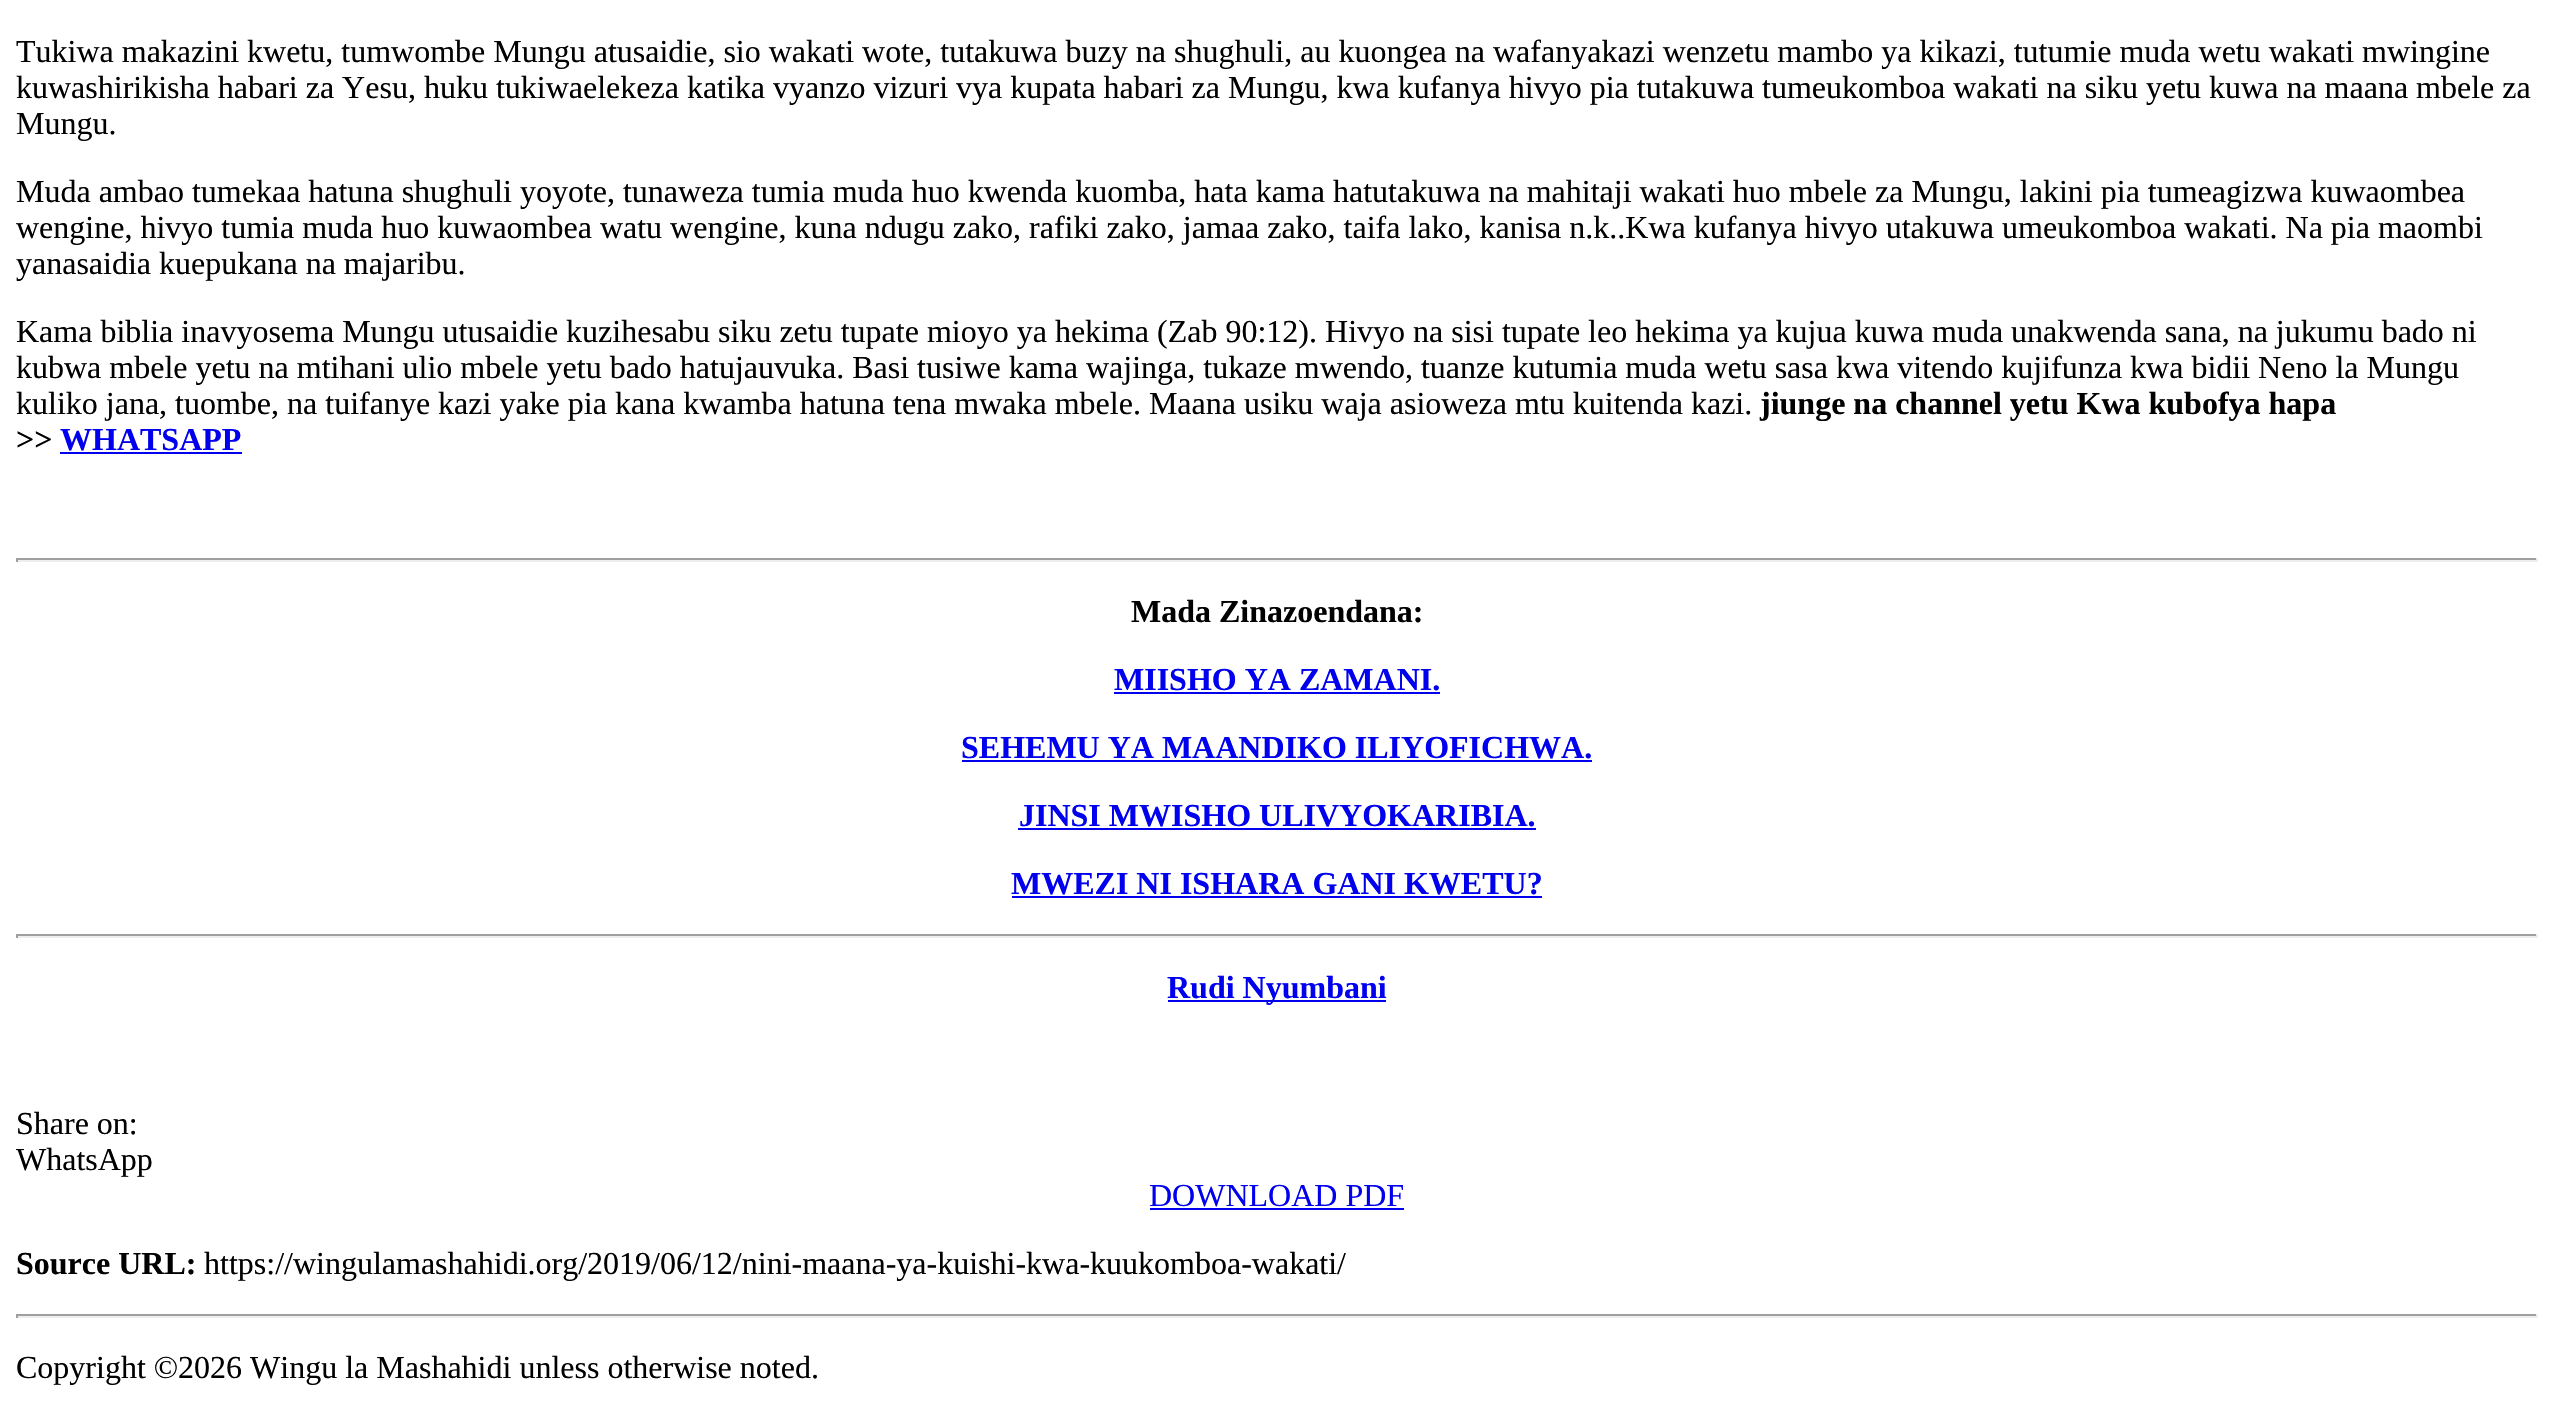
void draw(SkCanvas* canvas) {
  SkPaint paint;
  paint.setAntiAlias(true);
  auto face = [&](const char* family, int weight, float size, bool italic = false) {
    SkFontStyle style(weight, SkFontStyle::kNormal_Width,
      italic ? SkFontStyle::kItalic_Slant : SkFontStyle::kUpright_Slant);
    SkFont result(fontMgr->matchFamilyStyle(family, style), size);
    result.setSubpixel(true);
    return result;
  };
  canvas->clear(0xffffffff);
  {
    const struct { float x, y, w, h; SkColor color; } items[] = {
      {60, 452, 182, 2, 0xff0000ee},
      {16, 558, 2522, 2, 0xff9f9f9f},
      {2536, 558, 2, 4, 0xffeeeeee},
      {16, 560, 2522, 2, 0xffeeeeee},
      {16, 558, 2, 4, 0xff9f9f9f},
      {1114, 692, 326, 2, 0xff0000ee},
      {962, 760, 630, 2, 0xff0000ee},
      {1018, 828, 518, 2, 0xff0000ee},
      {1012, 896, 530, 2, 0xff0000ee},
      {16, 934, 2522, 2, 0xff9f9f9f},
      {2536, 934, 2, 4, 0xffeeeeee},
      {16, 936, 2522, 2, 0xffeeeeee},
      {16, 934, 2, 4, 0xff9f9f9f},
      {1168, 1000, 218, 2, 0xff0000ee},
      {1150, 1208, 254, 2, 0xff0000ee},
      {16, 1314, 2522, 2, 0xff9f9f9f},
      {2536, 1314, 2, 4, 0xffeeeeee},
      {16, 1316, 2522, 2, 0xffeeeeee},
      {16, 1314, 2, 4, 0xff9f9f9f},
    };
    for (auto [x, y, w, h, color] : items) {
      paint.setColor(color);
      canvas->drawRect(SkRect::MakeXYWH(x, y, w, h), paint);
    }
  }
  auto f0 = face("Liberation Serif", 400, 32);
  paint.setColor(0xff000000);
  {
    const struct { const char* s; float x, y; } items[] = {
      {"Tukiwa makazini kwetu, tumwombe Mungu atusaidie, sio wakati wote, tutakuwa buzy na shughuli, au kuongea na wafanyakazi wenzetu mambo ya kikazi, tutumie muda wetu wakati mwingine", 16, 62},
      {"kuwashirikisha habari za Yesu, huku tukiwaelekeza katika vyanzo vizuri vya kupata habari za Mungu, kwa kufanya hivyo pia tutakuwa tumeukomboa wakati na siku yetu kuwa na maana mbele za", 16, 98},
      {"Mungu.", 16, 134},
      {"Muda ambao tumekaa hatuna shughuli yoyote, tunaweza tumia muda huo kwenda kuomba, hata kama hatutakuwa na mahitaji wakati huo mbele za Mungu, lakini pia tumeagizwa kuwaombea", 16, 202},
      {"wengine, hivyo tumia muda huo kuwaombea watu wengine, kuna ndugu zako, rafiki zako, jamaa zako, taifa lako, kanisa n.k..Kwa kufanya hivyo utakuwa umeukomboa wakati. Na pia maombi", 16, 238},
      {"yanasaidia kuepukana na majaribu.", 16, 274},
      {"Kama biblia inavyosema Mungu utusaidie kuzihesabu siku zetu tupate mioyo ya hekima (Zab 90:12). Hivyo na sisi tupate leo hekima ya kujua kuwa muda unakwenda sana, na jukumu bado ni", 16, 342},
      {"kubwa mbele yetu na mtihani ulio mbele yetu bado hatujauvuka. Basi tusiwe kama wajinga, tukaze mwendo, tuanze kutumia muda wetu sasa kwa vitendo kujifunza kwa bidii Neno la Mungu", 16, 378},
      {"kuliko jana, tuombe, na tuifanye kazi yake pia kana kwamba hatuna tena mwaka mbele. Maana usiku waja asioweza mtu kuitenda kazi.", 16, 414},
    };
    for (auto [s, x, y] : items) {
      canvas->drawString(s, x, y, f0, paint);
    }
  }
  auto f1 = face("Liberation Serif", 700, 32);
  canvas->drawString("jiunge na channel yetu Kwa kubofya hapa", 1760, 414, f1, paint);
  canvas->drawString(">>", 16, 450, f1, paint);
  paint.setColor(0xff0000ee);
  canvas->drawString("WHATSAPP", 60, 450, f1, paint);
  paint.setColor(0xff000000);
  canvas->drawString("Mada Zinazoendana:", 1131, 622, f1, paint);
  paint.setColor(0xff0000ee);
  {
    const struct { const char* s; float x, y; } items[] = {
      {"MIISHO YA ZAMANI.", 1114, 690},
      {"SEHEMU YA MAANDIKO ILIYOFICHWA.", 961, 758},
      {"JINSI MWISHO ULIVYOKARIBIA.", 1019, 826},
      {"MWEZI NI ISHARA GANI KWETU?", 1011, 894},
      {"Rudi Nyumbani", 1167, 998},
    };
    for (auto [s, x, y] : items) {
      canvas->drawString(s, x, y, f1, paint);
    }
  }
  paint.setColor(0xff000000);
  canvas->drawString("Share on:", 16, 1134, f0, paint);
  canvas->drawString("WhatsApp", 16, 1170, f0, paint);
  paint.setColor(0xff0000ee);
  canvas->drawString("DOWNLOAD PDF", 1149, 1206, f0, paint);
  paint.setColor(0xff000000);
  canvas->drawString("Source URL:", 16, 1274, f1, paint);
  canvas->drawString("https://wingulamashahidi.org/2019/06/12/nini-maana-ya-kuishi-kwa-kuukomboa-wakati/", 204, 1274, f0, paint);
  canvas->drawString("Copyright ©2026 Wingu la Mashahidi unless otherwise noted.", 16, 1378, f0, paint);
}
